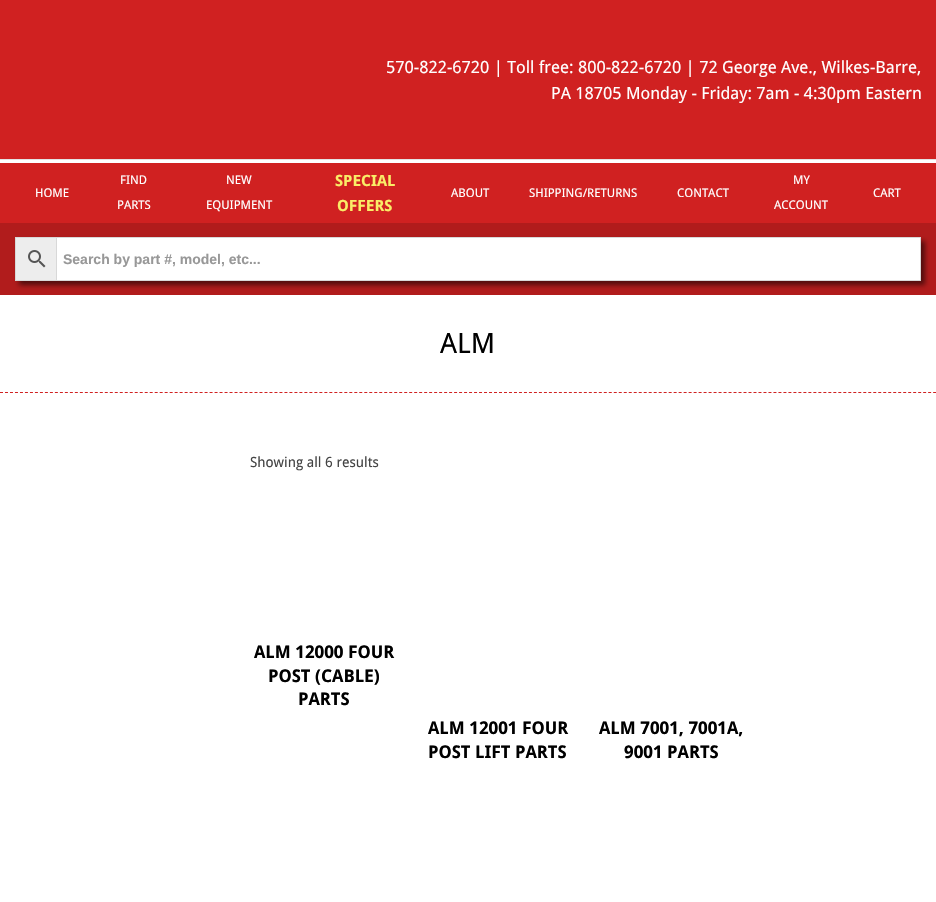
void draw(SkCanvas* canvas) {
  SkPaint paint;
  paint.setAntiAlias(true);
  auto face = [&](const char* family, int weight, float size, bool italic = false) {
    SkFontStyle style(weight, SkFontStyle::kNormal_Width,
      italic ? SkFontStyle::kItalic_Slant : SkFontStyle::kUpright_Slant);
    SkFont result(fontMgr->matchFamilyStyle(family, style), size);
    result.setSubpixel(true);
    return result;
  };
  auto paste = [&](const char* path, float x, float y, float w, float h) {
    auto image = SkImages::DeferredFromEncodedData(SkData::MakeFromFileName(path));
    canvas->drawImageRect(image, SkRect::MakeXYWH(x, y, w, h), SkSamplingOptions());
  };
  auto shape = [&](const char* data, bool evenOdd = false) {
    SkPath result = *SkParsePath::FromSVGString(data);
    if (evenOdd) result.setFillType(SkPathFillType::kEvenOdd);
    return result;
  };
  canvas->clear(0xffffffff);
  {
    const struct { float x, y, w, h; SkColor color; } items[] = {
      {0, 0, 936, 159, 0xffd02121},
      {0, 159, 936, 1, 0xffe3e3e3},
      {0, 163, 936, 60, 0xffd02121},
      {0, 223, 936, 72, 0xffb11c1c},
    };
    for (auto [x, y, w, h, color] : items) {
      paint.setColor(color);
      canvas->drawRect(SkRect::MakeXYWH(x, y, w, h), paint);
    }
  }
  paint.setColor(0x8c000000);
  paint.setMaskFilter(SkMaskFilter::MakeBlur(kNormal_SkBlurStyle, 2.5f));
  canvas->drawRect(SkRect::MakeXYWH(19, 241, 906, 44), paint);
  paint.setMaskFilter(nullptr);
  paint.setColor(0xffededed);
  canvas->drawRect(SkRect::MakeXYWH(15.5f, 237.5f, 41, 43), paint);
  paint.setStroke(true);
  paint.setStrokeWidth(1);
  paint.setColor(0xffd8d8d8);
  canvas->drawRect(SkRect::MakeXYWH(15.5f, 237.5f, 41, 43), paint);
  paste("img/1.png", 28, 250, 18, 18);
  paint.setStroke(false);
  paint.setColor(0xffffffff);
  canvas->drawRect(SkRect::MakeXYWH(56.5f, 237.5f, 864, 43), paint);
  paint.setStroke(true);
  paint.setColor(0xffd8d8d8);
  canvas->drawRect(SkRect::MakeXYWH(56.5f, 237.5f, 864, 43), paint);
  paint.setColor(0xffd02121);
  paint.setPathEffect(SkDashPathEffect::Make({{3, 1.99f}}, 0));
  canvas->drawPath(shape("M0 392.5H936"), paint);
  paint.setPathEffect(nullptr);
  auto f0 = face("Droid Sans", 400, 16.8f);
  paint.setStroke(false);
  paint.setColor(0xffffffff);
  canvas->drawString("570-822-6720 | Toll free: 800-822-6720 | 72 George Ave., Wilkes-Barre,", 386, 73, f0, paint);
  canvas->drawString("PA 18705 Monday - Friday: 7am - 4:30pm Eastern", 551, 99, f0, paint);
  auto f1 = face("Droid Sans", 400, 12);
  {
    const struct { const char* s; float x, y; } items[] = {
      {"HOME", 35, 197},
      {"FIND", 120, 184},
      {"PARTS", 117, 209},
      {"NEW", 226, 184},
      {"EQUIPMENT", 206, 209},
    };
    for (auto [s, x, y] : items) {
      canvas->drawString(s, x, y, f1, paint);
    }
  }
  auto f2 = face("Droid Sans", 700, 15.5f);
  paint.setColor(0xfffaed67);
  canvas->drawString("SPECIAL", 335, 186, f2, paint);
  canvas->drawString("OFFERS", 337, 211, f2, paint);
  paint.setColor(0xffffffff);
  {
    const struct { const char* s; float x, y; } items[] = {
      {"ABOUT", 451, 197},
      {"SHIPPING/RETURNS", 529, 197},
      {"CONTACT", 677, 197},
      {"MY", 793, 184},
      {"ACCOUNT", 774, 209},
      {"CART", 873, 197},
    };
    for (auto [s, x, y] : items) {
      canvas->drawString(s, x, y, f1, paint);
    }
  }
  auto f3 = face("Liberation Sans", 700, 14);
  paint.setColor(0xff989898);
  canvas->drawString("Search by part #, model, etc...", 63, 264, f3, paint);
  auto f4 = face("Droid Sans", 400, 28);
  paint.setColor(0xff000000);
  canvas->drawString("ALM", 440, 353, f4, paint);
  auto f5 = face("Droid Sans", 400, 14);
  paint.setColor(0xff444444);
  canvas->drawString("Showing all 6 results", 250, 467, f5, paint);
  auto f6 = face("Droid Sans", 700, 17.5f);
  paint.setColor(0xff000000);
  {
    const struct { const char* s; float x, y; } items[] = {
      {"ALM 12000 FOUR", 254, 658},
      {"POST (CABLE)", 268, 682},
      {"PARTS", 298, 705},
      {"ALM 12001 FOUR", 428, 734},
      {"POST LIFT PARTS", 428, 758},
      {"ALM 7001, 7001A,", 599, 734},
      {"9001 PARTS", 624, 758},
    };
    for (auto [s, x, y] : items) {
      canvas->drawString(s, x, y, f6, paint);
    }
  }
}
